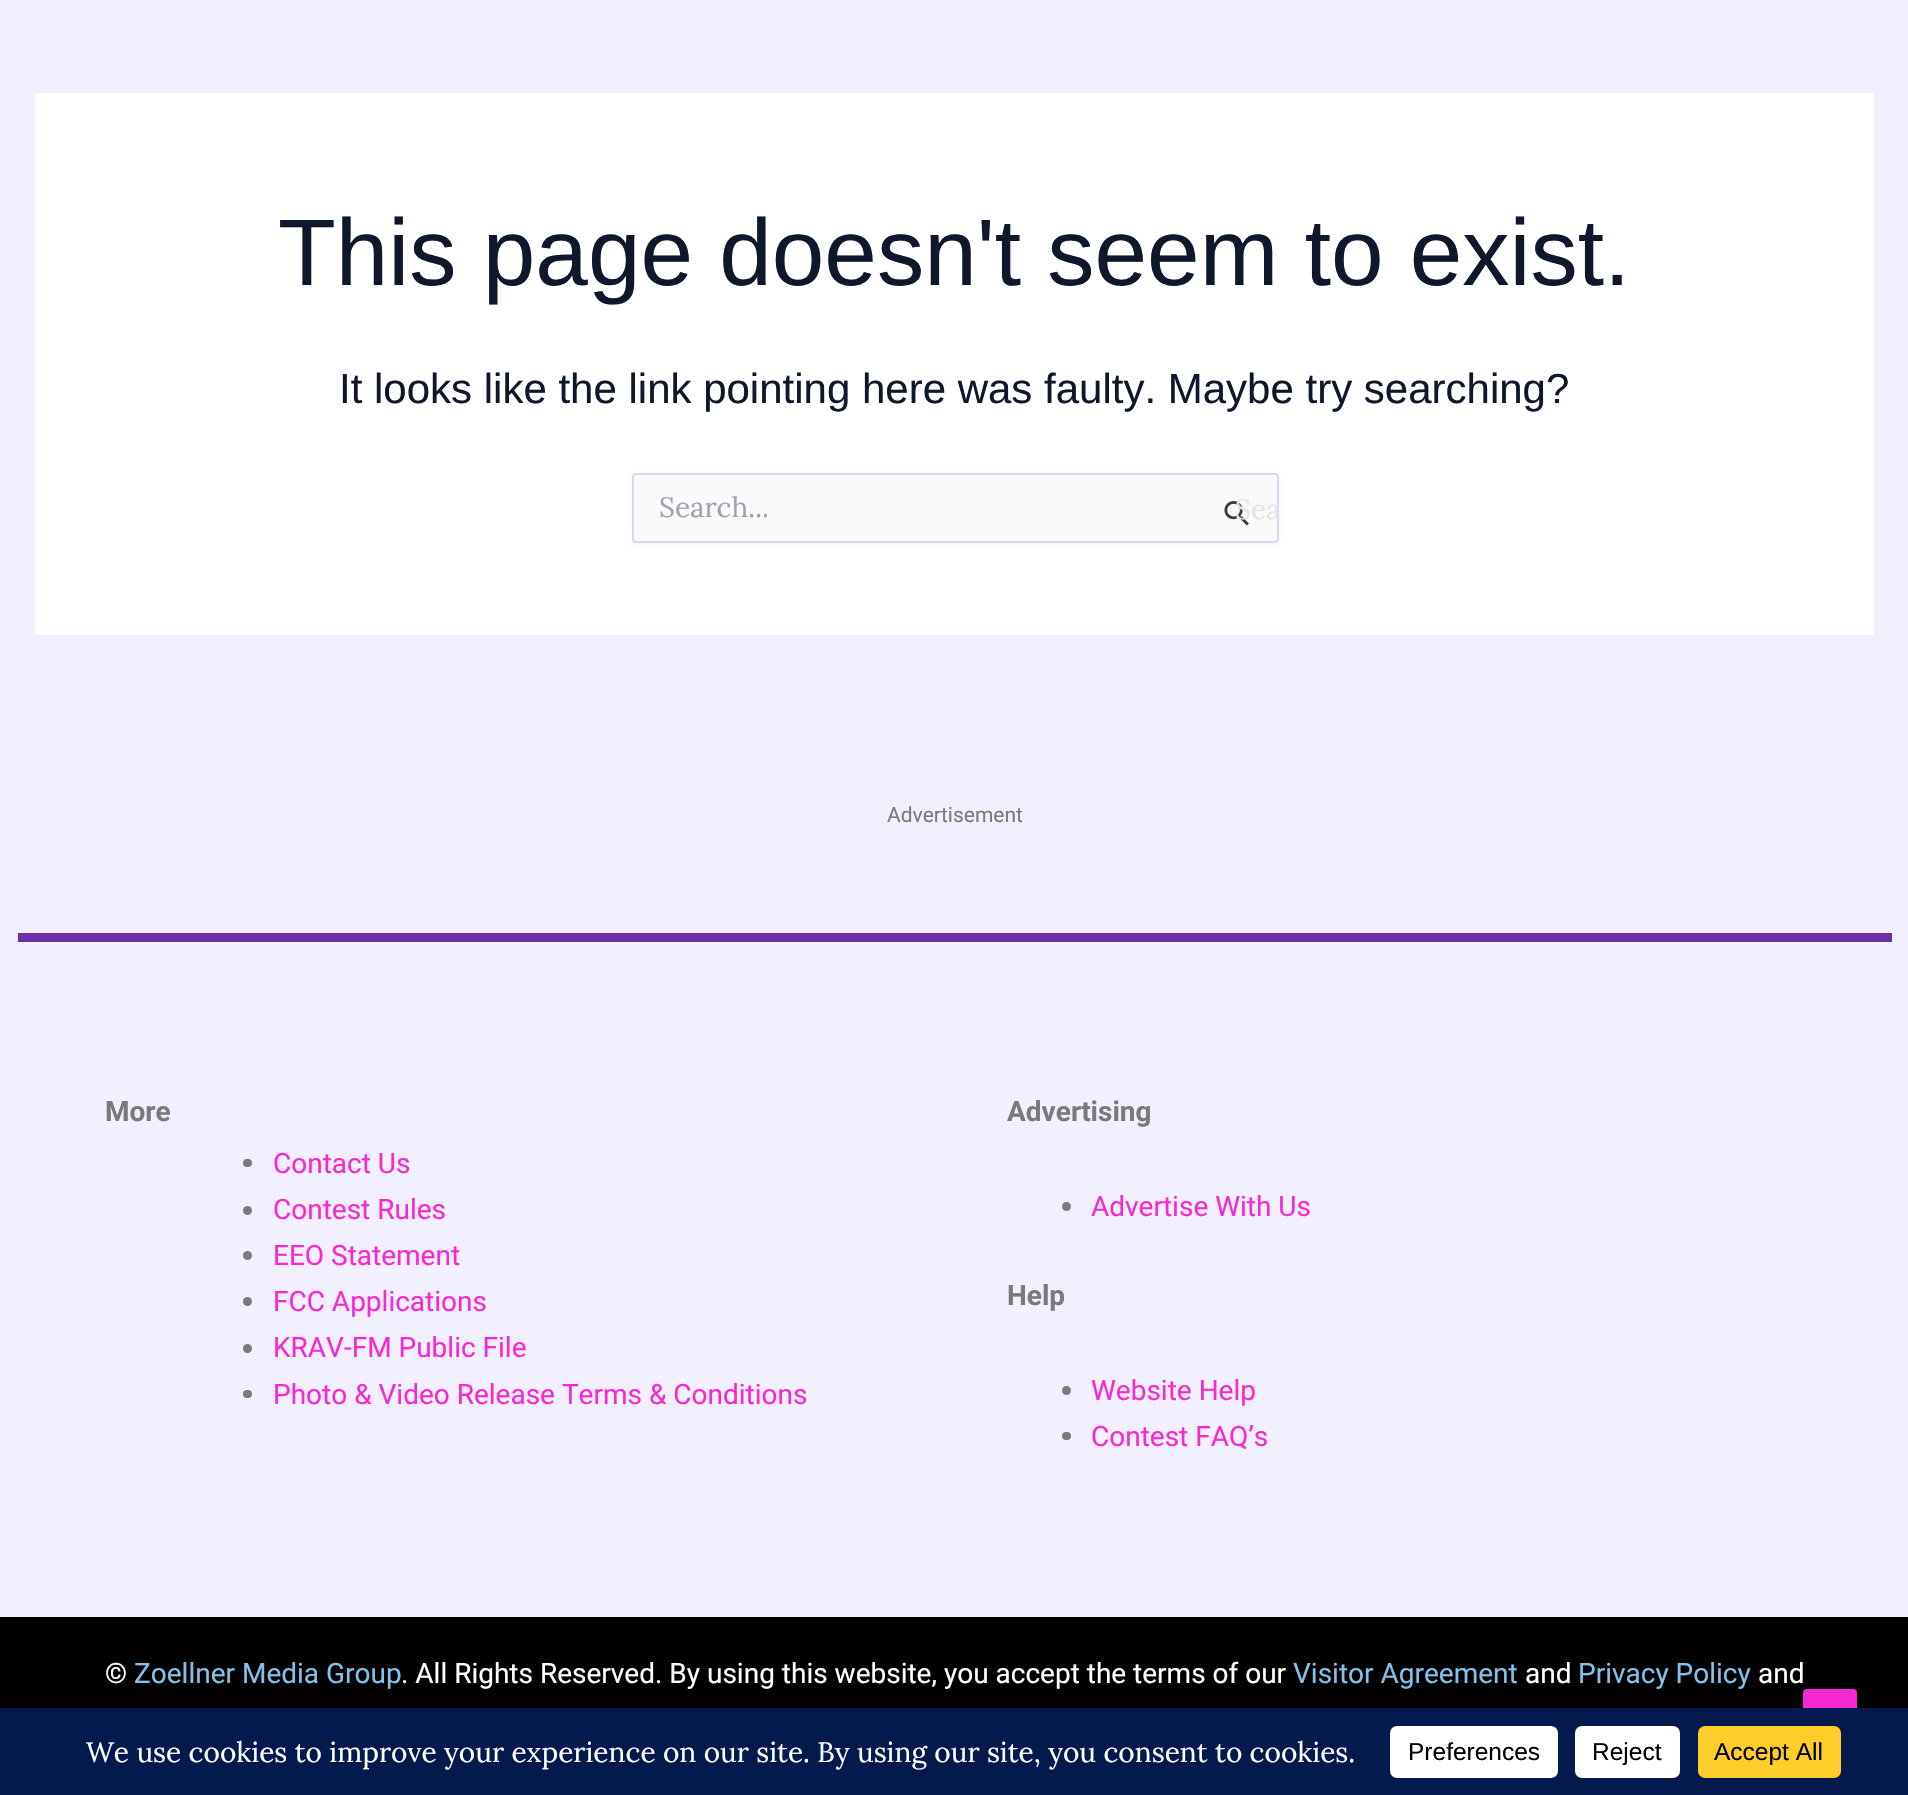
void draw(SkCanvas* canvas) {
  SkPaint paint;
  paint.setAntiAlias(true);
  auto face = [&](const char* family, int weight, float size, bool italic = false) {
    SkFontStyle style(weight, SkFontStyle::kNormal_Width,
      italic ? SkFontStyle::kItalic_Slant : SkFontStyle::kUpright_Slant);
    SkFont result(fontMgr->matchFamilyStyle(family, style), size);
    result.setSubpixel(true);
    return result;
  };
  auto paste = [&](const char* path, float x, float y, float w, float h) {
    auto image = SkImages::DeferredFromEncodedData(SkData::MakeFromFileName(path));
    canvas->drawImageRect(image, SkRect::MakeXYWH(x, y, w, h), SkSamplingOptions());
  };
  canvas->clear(0xfff2f0fe);
  paint.setColor(0xffffffff);
  canvas->drawRect(SkRect::MakeXYWH(35, 93, 1839, 542), paint);
  paint.setColor(0x0d000000);
  paint.setMaskFilter(SkMaskFilter::MakeBlur(kNormal_SkBlurStyle, 2));
  canvas->drawRoundRect(SkRect::MakeXYWH(632, 474, 647, 70), 4, 4, paint);
  paint.setMaskFilter(nullptr);
  paint.setColor(0xfffafafa);
  canvas->drawRoundRect(SkRect::MakeXYWH(633, 474, 645, 68), 3, 3, paint);
  paint.setStroke(true);
  paint.setStrokeWidth(2);
  paint.setColor(0xffd8d8f5);
  canvas->drawRoundRect(SkRect::MakeXYWH(633, 474, 645, 68), 3, 3, paint);
  paste("img/1.png", 1224, 501, 25, 25);
  paint.setStroke(false);
  paint.setColor(0xff6c2fa8);
  canvas->drawRect(SkRect::MakeXYWH(18, 933, 1874, 9), paint);
  paint.setColor(0xff7a7a7a);
  canvas->drawRoundRect(SkRect::MakeXYWH(243, 1159, 9, 8), 4, 4, paint);
  canvas->drawCircle(247.5f, 1210.5f, 4.5f, paint);
  canvas->drawCircle(247.5f, 1255.5f, 4.5f, paint);
  canvas->drawCircle(247.5f, 1301.5f, 4.5f, paint);
  canvas->drawCircle(247.5f, 1348.5f, 4.5f, paint);
  canvas->drawRoundRect(SkRect::MakeXYWH(243, 1390, 9, 8), 4, 4, paint);
  canvas->drawCircle(1066.5f, 1206.5f, 4.5f, paint);
  canvas->drawCircle(1066.5f, 1390.5f, 4.5f, paint);
  canvas->drawRoundRect(SkRect::MakeXYWH(1062, 1432, 9, 8), 4, 4, paint);
  paint.setColor(0xff000000);
  canvas->drawRect(SkRect::MakeXYWH(0, 1617, 1908, 91), paint);
  paint.setColor(0xfff728d2);
  canvas->drawRoundRect(SkRect::MakeXYWH(1803, 1689, 54, 54), 4, 4, paint);
  paint.setColor(0xff04194e);
  canvas->drawRect(SkRect::MakeXYWH(0, 1708, 1908, 87), paint);
  paint.setColor(0xffffffff);
  canvas->drawRoundRect(SkRect::MakeXYWH(1390, 1726, 168, 52), 7, 7, paint);
  canvas->drawRoundRect(SkRect::MakeXYWH(1575, 1726, 105, 52), 7, 7, paint);
  paint.setColor(0xffffcd2a);
  canvas->drawRoundRect(SkRect::MakeXYWH(1698, 1726, 143, 52), 7, 7, paint);
  auto f0 = face("Liberation Sans", 400, 94.5f);
  paint.setColor(0xff0f172a);
  canvas->drawString("This page doesn't seem to exist.", 278, 285, f0, paint);
  auto f1 = face("Liberation Sans", 400, 42);
  canvas->drawString("It looks like the link pointing here was faulty. Maybe try searching?", 339, 403, f1, paint);
  auto f2 = face("Lora", 400, 28);
  paint.setColor(0xff9ca3af);
  canvas->drawString("Search...", 659, 517, f2, paint);
  paint.setColor(0xffe4e4e5);
  canvas->drawString("Sea", 1235, 519, f2, paint);
  auto f3 = face("Roboto", 400, 21);
  paint.setColor(0xff7a7a7a);
  canvas->drawString("Advertisement", 887, 822, f3, paint);
  auto f4 = face("Roboto", 700, 28);
  canvas->drawString("More", 105, 1121, f4, paint);
  auto f5 = face("Roboto", 400, 28);
  paint.setColor(0xfff728d2);
  {
    const struct { const char* s; float x, y; } items[] = {
      {"Contact Us", 273, 1173},
      {"Contest Rules", 273, 1219},
      {"EEO Statement", 273, 1265},
      {"FCC Applications", 273, 1311},
      {"KRAV-FM Public File", 273, 1357},
      {"Photo & Video Release Terms & Conditions", 273, 1404},
    };
    for (auto [s, x, y] : items) {
      canvas->drawString(s, x, y, f5, paint);
    }
  }
  paint.setColor(0xff7a7a7a);
  canvas->drawString("Advertising", 1007, 1121, f4, paint);
  paint.setColor(0xfff728d2);
  canvas->drawString("Advertise With Us", 1091, 1216, f5, paint);
  paint.setColor(0xff7a7a7a);
  canvas->drawString("Help", 1007, 1305, f4, paint);
  paint.setColor(0xfff728d2);
  canvas->drawString("Website Help", 1091, 1400, f5, paint);
  canvas->drawString("Contest FAQ’s", 1091, 1446, f5, paint);
  paint.setColor(0xffffffff);
  canvas->drawString("©", 105, 1683, f5, paint);
  paint.setColor(0xff83c1e7);
  canvas->drawString("Zoellner Media Group", 134, 1683, f5, paint);
  paint.setColor(0xffffffff);
  canvas->drawString(". All Rights Reserved. By using this website, you accept the terms of our", 401, 1683, f5, paint);
  paint.setColor(0xff83c1e7);
  canvas->drawString("Visitor Agreement", 1293, 1683, f5, paint);
  paint.setColor(0xffffffff);
  canvas->drawString("and", 1525, 1683, f5, paint);
  paint.setColor(0xff83c1e7);
  canvas->drawString("Privacy Policy", 1578, 1683, f5, paint);
  paint.setColor(0xffffffff);
  canvas->drawString("and", 1758, 1683, f5, paint);
  canvas->drawString("We use cookies to improve your experience on our site. By using our site, you consent to cookies.", 86, 1762, f2, paint);
  auto f6 = face("Liberation Sans", 400, 24.5f);
  paint.setColor(0xff000000);
  {
    const struct { const char* s; float x, y; } items[] = {
      {"Preferences", 1408, 1760},
      {"Reject", 1592, 1760},
      {"Accept All", 1714, 1760},
    };
    for (auto [s, x, y] : items) {
      canvas->drawString(s, x, y, f6, paint);
    }
  }
}
